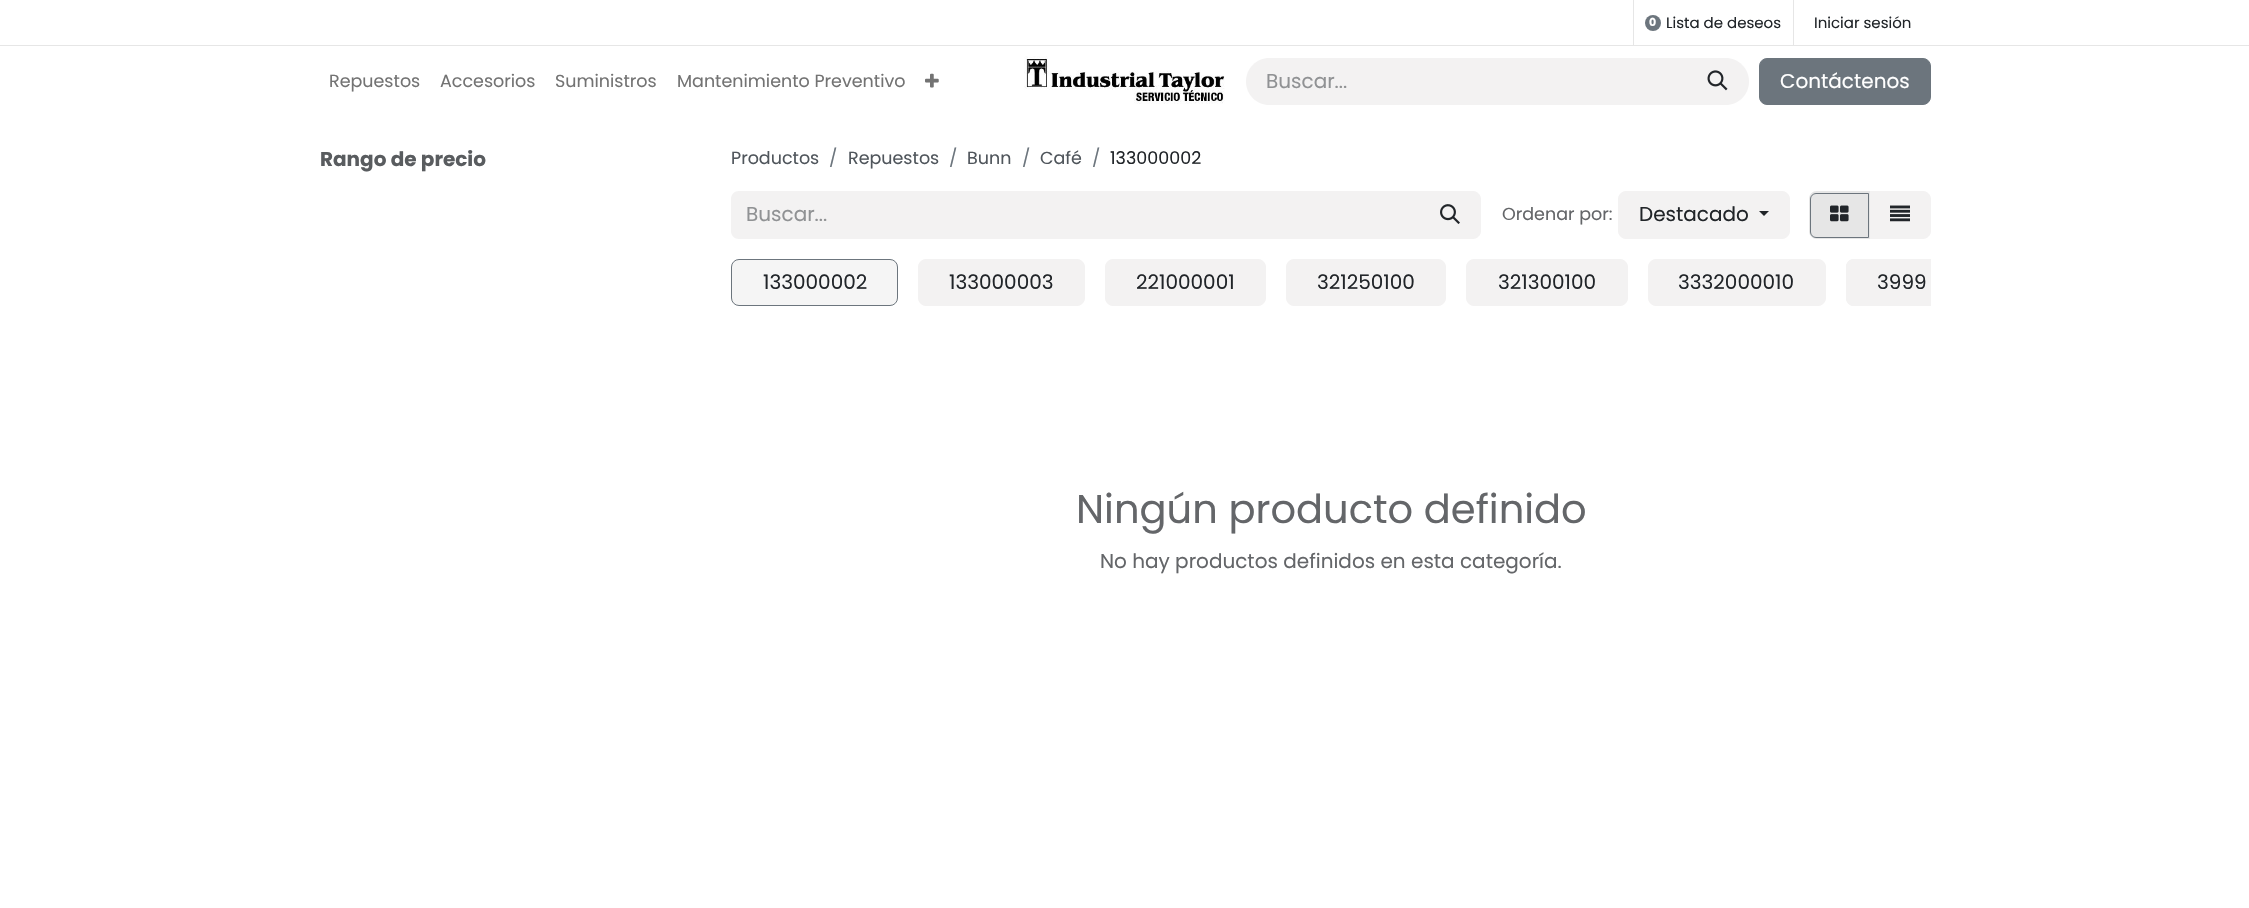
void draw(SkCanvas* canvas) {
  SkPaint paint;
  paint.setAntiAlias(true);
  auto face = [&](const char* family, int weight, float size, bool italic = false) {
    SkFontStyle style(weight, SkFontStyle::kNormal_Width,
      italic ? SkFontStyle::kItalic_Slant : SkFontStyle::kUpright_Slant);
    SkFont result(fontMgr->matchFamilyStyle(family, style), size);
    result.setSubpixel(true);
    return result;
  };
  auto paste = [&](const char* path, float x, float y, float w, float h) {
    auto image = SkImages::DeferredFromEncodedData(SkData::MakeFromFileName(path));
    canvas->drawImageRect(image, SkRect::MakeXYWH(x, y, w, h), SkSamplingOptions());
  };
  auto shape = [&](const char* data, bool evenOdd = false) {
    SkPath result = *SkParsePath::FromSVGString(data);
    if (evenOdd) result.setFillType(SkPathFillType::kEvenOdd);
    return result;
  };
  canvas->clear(0xffffffff);
  paint.setColor(0xffe6e6e6);
  canvas->drawRect(SkRect::MakeXYWH(0, 45, 2249, 1), paint);
  canvas->drawRect(SkRect::MakeXYWH(1633, 0, 1, 45), paint);
  paint.setColor(0xff6c757d);
  canvas->drawCircle(1653, 23, 8, paint);
  paint.setColor(0xffe6e6e6);
  canvas->drawRect(SkRect::MakeXYWH(1793, 0, 1, 45), paint);
  paste("img/1.png", 925, 73, 14, 15);
  paste("img/2.png", 1024, 56, 201, 48);
  paint.setColor(0xfff3f2f2);
  canvas->drawPath(shape("M1269.5 58H1688V105H1269.5C1256.5 105 1246 94.5 1246 81.5C1246 68.5 1256.5 58 1269.5 58Z"), paint);
  canvas->drawPath(shape("M1686 58H1725.5C1738.5 58 1749 68.5 1749 81.5C1749 94.5 1738.5 105 1725.5 105H1686Z"), paint);
  paste("img/3.png", 1707, 70, 21, 21);
  paint.setColor(0xff6c757d);
  canvas->drawRoundRect(SkRect::MakeXYWH(1759.5f, 58.5f, 171, 46), 7.5f, 7.5f, paint);
  paint.setStroke(true);
  paint.setStrokeWidth(1);
  canvas->drawRoundRect(SkRect::MakeXYWH(1759.5f, 58.5f, 171, 46), 7.5f, 7.5f, paint);
  paint.setStroke(false);
  paint.setColor(0xfff3f2f2);
  canvas->drawPath(shape("M739 191H1420V239H739C734.5 239 731 235.5 731 231V199C731 194.5 734.5 191 739 191Z"), paint);
  canvas->drawPath(shape("M1419.5 191.5H1473C1477 191.5 1480.5 195 1480.5 199V231C1480.5 235 1477 238.5 1473 238.5H1419.5Z"), paint);
  paint.setStroke(true);
  canvas->drawPath(shape("M1419.5 191.5H1473C1477 191.5 1480.5 195 1480.5 199V231C1480.5 235 1477 238.5 1473 238.5H1419.5Z"), paint);
  paste("img/4.png", 1440, 204, 20, 20);
  paint.setStroke(false);
  canvas->drawRoundRect(SkRect::MakeXYWH(1618.5f, 191.5f, 171, 47), 7.5f, 7.5f, paint);
  paint.setStroke(true);
  canvas->drawRoundRect(SkRect::MakeXYWH(1618.5f, 191.5f, 171, 47), 7.5f, 7.5f, paint);
  paint.setStroke(false);
  paint.setColor(0xff212529);
  canvas->drawPath(shape("M1759 211H1769L1764 216Z"), paint);
  paint.setColor(0xfff3f2f2);
  canvas->drawPath(shape("M1869.5 191.5H1923C1927 191.5 1930.5 195 1930.5 199V231C1930.5 235 1927 238.5 1923 238.5H1869.5Z"), paint);
  paint.setStroke(true);
  canvas->drawPath(shape("M1869.5 191.5H1923C1927 191.5 1930.5 195 1930.5 199V231C1930.5 235 1927 238.5 1923 238.5H1869.5Z"), paint);
  paint.setStroke(false);
  paint.setColor(0xffe6e6e6);
  canvas->drawPath(shape("M1817 191H1870V239H1817C1812.5 239 1809 235.5 1809 231V199C1809 194.5 1812.5 191 1817 191Z"), paint);
  paint.setStroke(true);
  paint.setColor(0xff6c757d);
  canvas->drawPath(shape("M1816 193.5H1868.5V237.5H1816C1813 237.5 1810.5 235 1810.5 232V199C1810.5 196 1813 193.5 1816 193.5Z"), paint);
  paste("img/5.png", 1830, 205, 19, 17);
  paste("img/6.png", 1890, 205, 20, 17);
  paint.setStroke(false);
  paint.setColor(0xfff5f5f5);
  canvas->drawRoundRect(SkRect::MakeXYWH(731.5f, 259.5f, 166, 46), 7.5f, 7.5f, paint);
  paint.setStroke(true);
  paint.setColor(0xff6c757d);
  canvas->drawRoundRect(SkRect::MakeXYWH(731.5f, 259.5f, 166, 46), 7.5f, 7.5f, paint);
  paint.setStroke(false);
  paint.setColor(0xfff3f2f2);
  canvas->drawRoundRect(SkRect::MakeXYWH(918.5f, 259.5f, 166, 46), 7.5f, 7.5f, paint);
  paint.setStroke(true);
  canvas->drawRoundRect(SkRect::MakeXYWH(918.5f, 259.5f, 166, 46), 7.5f, 7.5f, paint);
  paint.setStroke(false);
  canvas->drawRoundRect(SkRect::MakeXYWH(1105.5f, 259.5f, 160, 46), 7.5f, 7.5f, paint);
  paint.setStroke(true);
  canvas->drawRoundRect(SkRect::MakeXYWH(1105.5f, 259.5f, 160, 46), 7.5f, 7.5f, paint);
  paint.setStroke(false);
  canvas->drawRoundRect(SkRect::MakeXYWH(1286.5f, 259.5f, 159, 46), 7.5f, 7.5f, paint);
  paint.setStroke(true);
  canvas->drawRoundRect(SkRect::MakeXYWH(1286.5f, 259.5f, 159, 46), 7.5f, 7.5f, paint);
  paint.setStroke(false);
  canvas->drawRoundRect(SkRect::MakeXYWH(1466.5f, 259.5f, 161, 46), 7.5f, 7.5f, paint);
  paint.setStroke(true);
  canvas->drawRoundRect(SkRect::MakeXYWH(1466.5f, 259.5f, 161, 46), 7.5f, 7.5f, paint);
  paint.setStroke(false);
  canvas->drawRoundRect(SkRect::MakeXYWH(1648.5f, 259.5f, 177, 46), 7.5f, 7.5f, paint);
  paint.setStroke(true);
  canvas->drawRoundRect(SkRect::MakeXYWH(1648.5f, 259.5f, 177, 46), 7.5f, 7.5f, paint);
  paint.setStroke(false);
  canvas->drawPath(shape("M1854 259H1931V306H1854C1849.5 306 1846 302.5 1846 298V267C1846 262.5 1849.5 259 1854 259Z"), paint);
  canvas->save();
  canvas->clipRect(SkRect::MakeXYWH(731, 259, 1200, 52));
  paint.setStroke(true);
  canvas->drawRoundRect(SkRect::MakeXYWH(1846.5f, 259.5f, 187, 46), 7.5f, 7.5f, paint);
  canvas->restore();
  auto f0 = face("Poppins", 700, 11);
  paint.setStroke(false);
  paint.setColor(0xffffffff);
  canvas->drawString("0", 1649, 26, f0, paint);
  auto f1 = face("Poppins", 400, 15);
  paint.setColor(0xff212529);
  canvas->drawString("Lista de deseos", 1666, 28, f1, paint);
  canvas->drawString("Iniciar sesión", 1814, 28, f1, paint);
  auto f2 = face("Poppins", 400, 17.5f);
  paint.setColor(0xff737373);
  {
    const struct { const char* s; float x, y; } items[] = {
      {"Repuestos", 329, 87},
      {"Accesorios", 440, 87},
      {"Suministros", 555, 87},
      {"Mantenimiento Preventivo", 677, 87},
    };
    for (auto [s, x, y] : items) {
      canvas->drawString(s, x, y, f2, paint);
    }
  }
  auto f3 = face("Poppins", 400, 20);
  paint.setColor(0xff909294);
  canvas->drawString("Buscar...", 1266, 88, f3, paint);
  paint.setColor(0xffffffff);
  canvas->drawString("Contáctenos", 1780, 88, f3, paint);
  auto f4 = face("Poppins", 700, 20);
  paint.setColor(0xff595c5f);
  canvas->drawString("Rango de precio", 320, 166, f4, paint);
  paint.setColor(0xff50565c);
  canvas->drawString("Productos", 731, 164, f2, paint);
  paint.setColor(0xff6c757d);
  canvas->drawString("/", 829, 164, f2, paint);
  paint.setColor(0xff50565c);
  canvas->drawString("Repuestos", 848, 164, f2, paint);
  paint.setColor(0xff6c757d);
  canvas->drawString("/", 949, 164, f2, paint);
  paint.setColor(0xff50565c);
  canvas->drawString("Bunn", 967, 164, f2, paint);
  paint.setColor(0xff6c757d);
  canvas->drawString("/", 1022, 164, f2, paint);
  paint.setColor(0xff50565c);
  canvas->drawString("Café", 1040, 164, f2, paint);
  paint.setColor(0xff6c757d);
  canvas->drawString("/", 1092, 164, f2, paint);
  paint.setColor(0xff212529);
  canvas->drawString("133000002", 1110, 164, f2, paint);
  paint.setColor(0xff909294);
  canvas->drawString("Buscar...", 746, 221, f3, paint);
  paint.setColor(0xff646669);
  canvas->drawString("Ordenar por:", 1502, 220, f2, paint);
  paint.setColor(0xff212529);
  {
    const struct { const char* s; float x, y; } items[] = {
      {"Destacado", 1639, 221},
      {"133000002", 763, 289},
      {"133000003", 949, 289},
      {"221000001", 1136, 289},
      {"321250100", 1317, 289},
      {"321300100", 1498, 289},
      {"3332000010", 1678, 289},
      {"3999", 1877, 289},
    };
    for (auto [s, x, y] : items) {
      canvas->drawString(s, x, y, f3, paint);
    }
  }
  auto f5 = face("Poppins", 400, 40);
  paint.setColor(0xff646669);
  canvas->drawString("Ningún producto definido", 1076, 523, f5, paint);
  canvas->drawString("No hay productos definidos en esta categoría.", 1100, 568, f3, paint);
}
